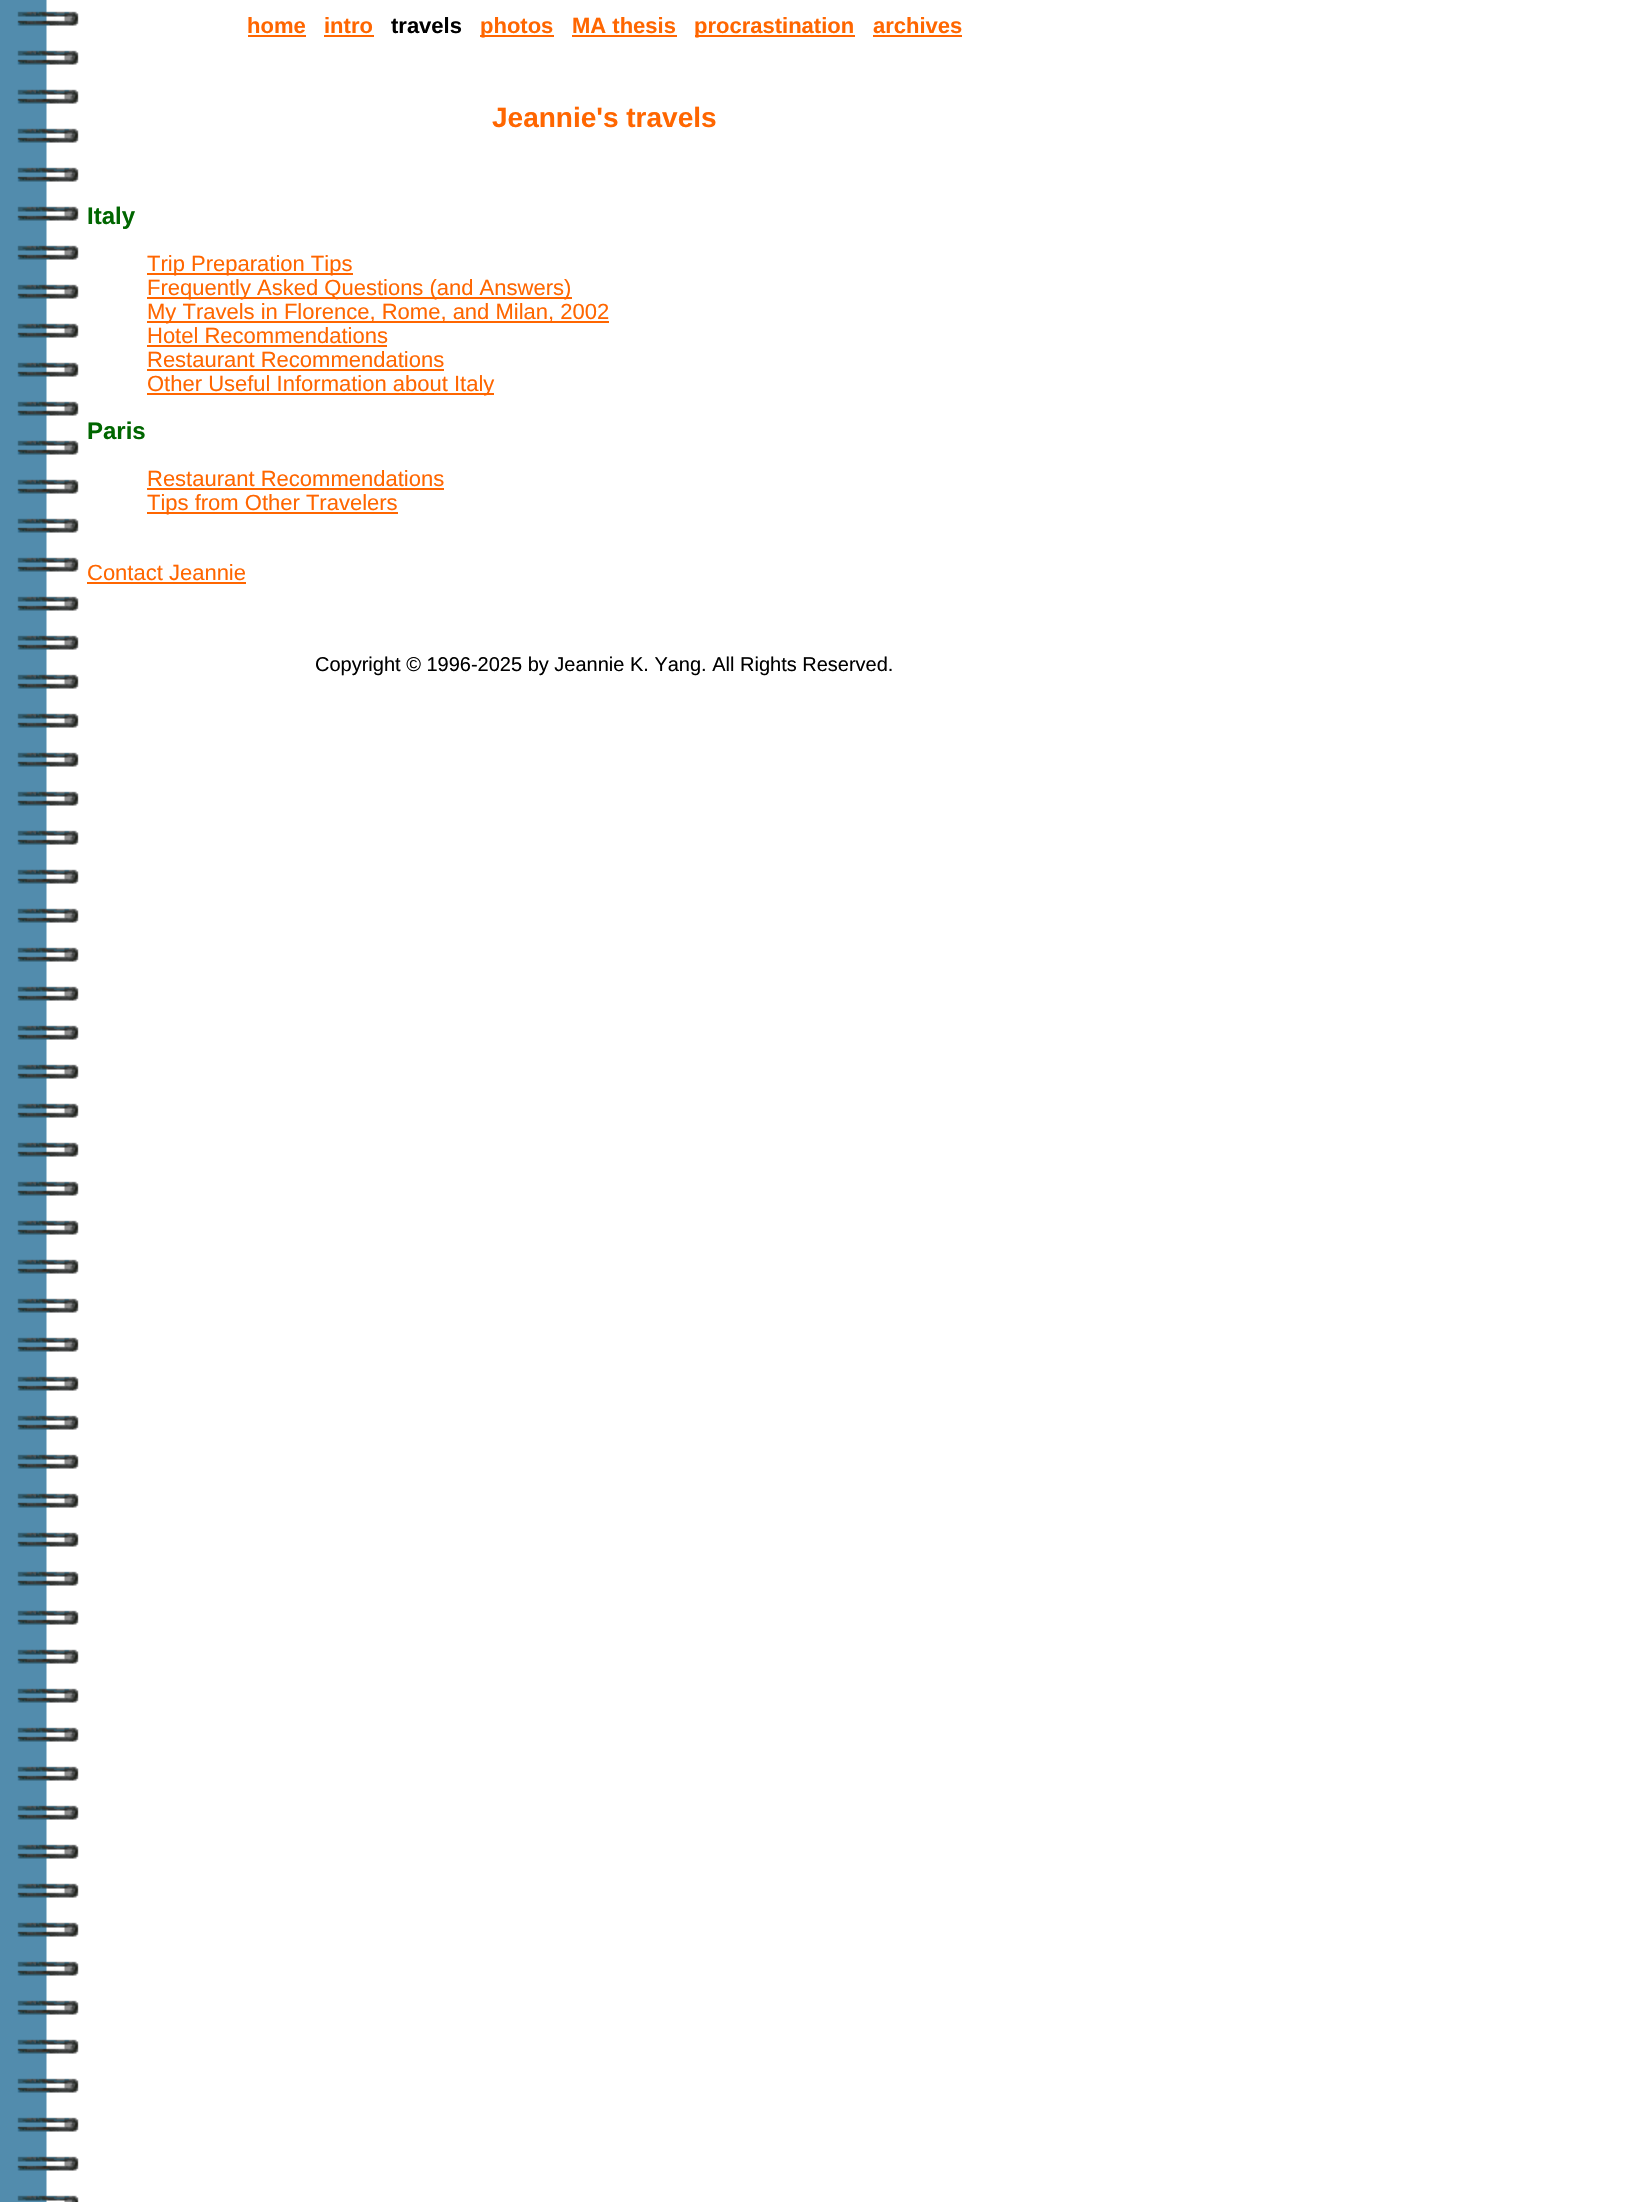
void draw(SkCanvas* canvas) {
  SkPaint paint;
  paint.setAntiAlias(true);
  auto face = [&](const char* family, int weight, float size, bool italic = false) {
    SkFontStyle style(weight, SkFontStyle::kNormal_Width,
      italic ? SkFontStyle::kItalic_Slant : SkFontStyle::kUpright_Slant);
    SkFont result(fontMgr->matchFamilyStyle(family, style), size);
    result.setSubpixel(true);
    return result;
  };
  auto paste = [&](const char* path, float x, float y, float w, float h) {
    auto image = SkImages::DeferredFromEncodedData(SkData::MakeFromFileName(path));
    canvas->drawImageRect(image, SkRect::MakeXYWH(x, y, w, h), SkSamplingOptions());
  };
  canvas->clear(0xffffffff);
  paste("img/1.png", 0, 0, 79, 2202);
  {
    const struct { float x, y, w, h; SkColor color; } items[] = {
      {248, 35, 58, 2, 0xffff6600},
      {324, 35, 50, 2, 0xffff6600},
      {480, 35, 74, 2, 0xffff6600},
      {572, 35, 105, 2, 0xffff6600},
      {695, 35, 160, 2, 0xffff6600},
      {873, 35, 89, 2, 0xffff6600},
      {147, 273, 206, 2, 0xffff6600},
      {147, 297, 425, 2, 0xffff6600},
      {147, 321, 462, 2, 0xffff6600},
      {147, 345, 240, 2, 0xffff6600},
      {147, 369, 297, 2, 0xffff6600},
      {147, 393, 347, 2, 0xffff6600},
      {147, 488, 297, 2, 0xffff6600},
      {147, 512, 251, 2, 0xffff6600},
      {87, 582, 159, 2, 0xffff6600},
    };
    for (auto [x, y, w, h, color] : items) {
      paint.setColor(color);
      canvas->drawRect(SkRect::MakeXYWH(x, y, w, h), paint);
    }
  }
  auto f0 = face("Liberation Sans", 700, 22);
  canvas->drawString("home", 247, 33, f0, paint);
  canvas->drawString("intro", 324, 33, f0, paint);
  paint.setColor(0xff000000);
  canvas->drawString("travels", 391, 33, f0, paint);
  paint.setColor(0xffff6600);
  {
    const struct { const char* s; float x, y; } items[] = {
      {"photos", 480, 33},
      {"MA thesis", 572, 33},
      {"procrastination", 694, 33},
      {"archives", 873, 33},
    };
    for (auto [s, x, y] : items) {
      canvas->drawString(s, x, y, f0, paint);
    }
  }
  auto f1 = face("Liberation Sans", 700, 28);
  canvas->drawString("Jeannie's travels", 492, 127, f1, paint);
  auto f2 = face("Liberation Sans", 700, 24);
  paint.setColor(0xff006600);
  canvas->drawString("Italy", 87, 224, f2, paint);
  auto f3 = face("Liberation Sans", 400, 22);
  paint.setColor(0xffff6600);
  {
    const struct { const char* s; float x, y; } items[] = {
      {"Trip Preparation Tips", 147, 271},
      {"Frequently Asked Questions (and Answers)", 147, 295},
      {"My Travels in Florence, Rome, and Milan, 2002", 147, 319},
      {"Hotel Recommendations", 147, 343},
      {"Restaurant Recommendations", 147, 367},
      {"Other Useful Information about Italy", 147, 391},
    };
    for (auto [s, x, y] : items) {
      canvas->drawString(s, x, y, f3, paint);
    }
  }
  paint.setColor(0xff006600);
  canvas->drawString("Paris", 87, 439, f2, paint);
  paint.setColor(0xffff6600);
  {
    const struct { const char* s; float x, y; } items[] = {
      {"Restaurant Recommendations", 147, 486},
      {"Tips from Other Travelers", 147, 510},
      {"Contact Jeannie", 87, 580},
    };
    for (auto [s, x, y] : items) {
      canvas->drawString(s, x, y, f3, paint);
    }
  }
  auto f4 = face("Liberation Sans", 400, 20);
  paint.setColor(0xff000000);
  canvas->drawString("Copyright © 1996-2025 by Jeannie K. Yang. All Rights Reserved.", 315, 671, f4, paint);
}
